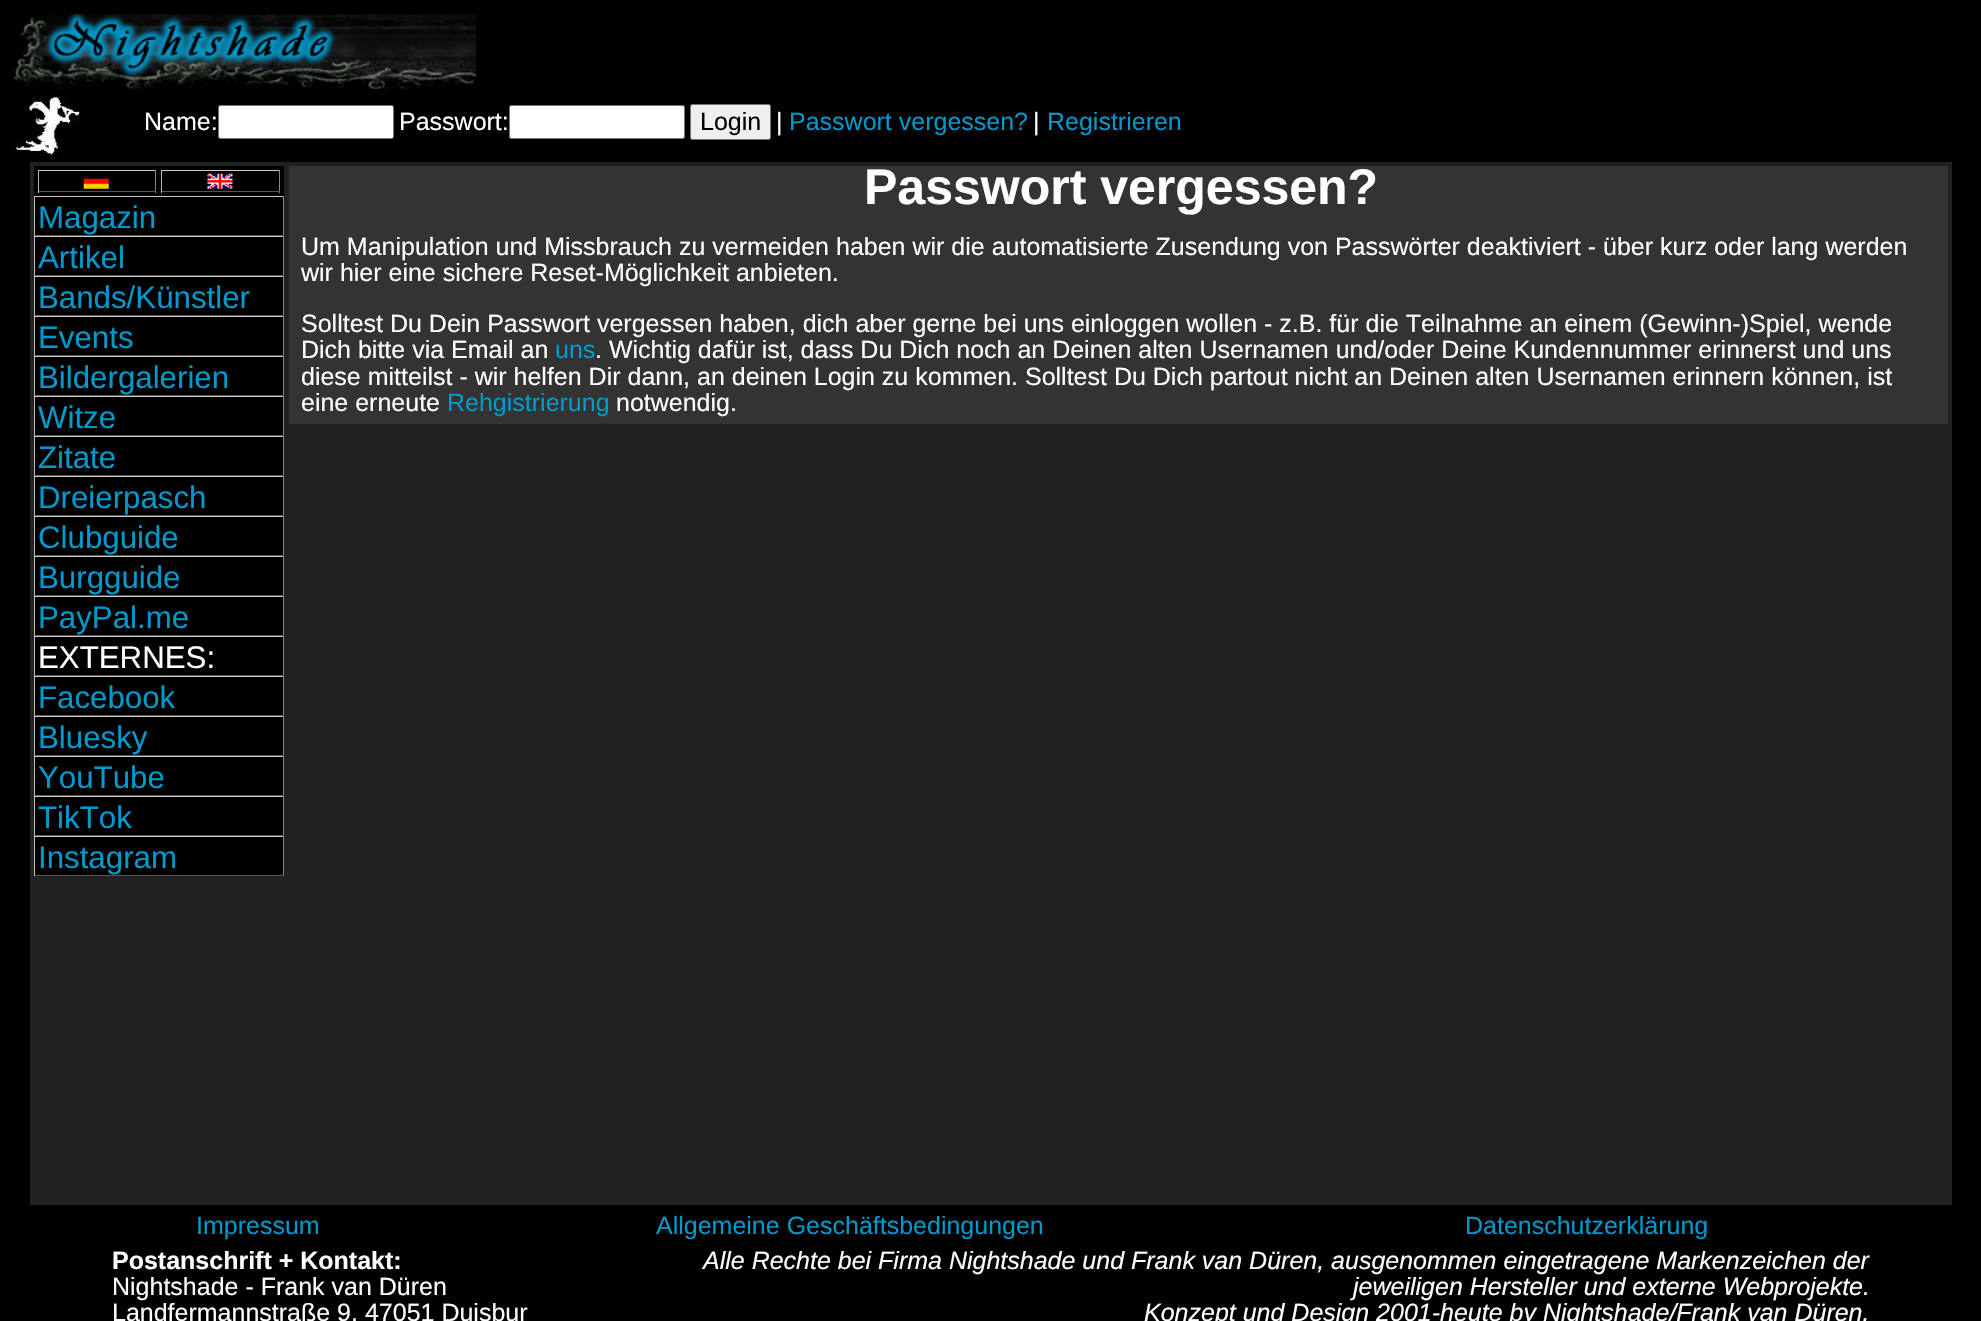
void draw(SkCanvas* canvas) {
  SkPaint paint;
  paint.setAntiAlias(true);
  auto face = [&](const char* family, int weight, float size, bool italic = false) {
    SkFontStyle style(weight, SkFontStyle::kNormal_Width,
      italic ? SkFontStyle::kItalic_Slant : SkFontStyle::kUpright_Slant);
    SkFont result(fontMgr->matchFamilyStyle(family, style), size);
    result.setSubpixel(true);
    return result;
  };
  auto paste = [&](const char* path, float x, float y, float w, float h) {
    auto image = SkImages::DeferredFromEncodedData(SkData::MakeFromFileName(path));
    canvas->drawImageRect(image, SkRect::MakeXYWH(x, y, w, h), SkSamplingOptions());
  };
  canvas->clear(0xff000000);
  paste("img/1.png", 13, 13, 464, 76);
  paste("img/2.png", 14, 96, 67, 63);
  paint.setColor(0xffffffff);
  canvas->drawRoundRect(SkRect::MakeXYWH(218.5f, 105.5f, 175, 33), 2, 2, paint);
  paint.setStroke(true);
  paint.setStrokeWidth(1);
  paint.setColor(0xff767676);
  canvas->drawRoundRect(SkRect::MakeXYWH(218.5f, 105.5f, 175, 33), 2, 2, paint);
  paint.setStroke(false);
  paint.setColor(0xffffffff);
  canvas->drawRoundRect(SkRect::MakeXYWH(509.5f, 105.5f, 175, 33), 2, 2, paint);
  paint.setStroke(true);
  paint.setColor(0xff767676);
  canvas->drawRoundRect(SkRect::MakeXYWH(509.5f, 105.5f, 175, 33), 2, 2, paint);
  paint.setStroke(false);
  paint.setColor(0xffefefef);
  canvas->drawRoundRect(SkRect::MakeXYWH(690.5f, 104.5f, 80, 35), 2, 2, paint);
  paint.setStroke(true);
  paint.setColor(0xff767676);
  canvas->drawRoundRect(SkRect::MakeXYWH(690.5f, 104.5f, 80, 35), 2, 2, paint);
  paint.setStroke(false);
  {
    const struct { float x, y, w, h; SkColor color; } items[] = {
      {30, 162, 1922, 1043, 0xff212121},
      {34, 166, 250, 30, 0xff000000},
      {38, 170, 118, 1, 0xffcccccc},
      {155, 170, 1, 23, 0xff888888},
      {38, 191, 118, 1, 0xff555555},
      {38, 170, 1, 23, 0xffbbbbbb},
    };
    for (auto [x, y, w, h, color] : items) {
      paint.setColor(color);
      canvas->drawRect(SkRect::MakeXYWH(x, y, w, h), paint);
    }
  }
  paste("img/3.png", 83, 178, 26, 11);
  {
    const struct { float x, y, w, h; SkColor color; } items[] = {
      {161, 170, 119, 1, 0xffcccccc},
      {279, 170, 1, 23, 0xff888888},
      {161, 191, 119, 1, 0xff555555},
      {161, 170, 1, 23, 0xffbbbbbb},
    };
    for (auto [x, y, w, h, color] : items) {
      paint.setColor(color);
      canvas->drawRect(SkRect::MakeXYWH(x, y, w, h), paint);
    }
  }
  paste("img/4.png", 207, 173, 26, 16);
  {
    const struct { float x, y, w, h; SkColor color; } items[] = {
      {35, 197, 248, 38, 0xff000000},
      {34, 196, 250, 1, 0xffcccccc},
      {283, 196, 1, 40, 0xff888888},
      {34, 235, 250, 1, 0xff555555},
      {34, 196, 1, 40, 0xffbbbbbb},
      {35, 237, 248, 38, 0xff000000},
      {34, 236, 250, 1, 0xffcccccc},
      {283, 236, 1, 40, 0xff888888},
      {34, 275, 250, 1, 0xff555555},
      {34, 236, 1, 40, 0xffbbbbbb},
      {35, 277, 248, 38, 0xff000000},
      {34, 276, 250, 1, 0xffcccccc},
      {283, 276, 1, 40, 0xff888888},
      {34, 315, 250, 1, 0xff555555},
      {34, 276, 1, 40, 0xffbbbbbb},
      {35, 317, 248, 38, 0xff000000},
      {34, 316, 250, 1, 0xffcccccc},
      {283, 316, 1, 40, 0xff888888},
      {34, 355, 250, 1, 0xff555555},
      {34, 316, 1, 40, 0xffbbbbbb},
      {35, 357, 248, 38, 0xff000000},
      {34, 356, 250, 1, 0xffcccccc},
      {283, 356, 1, 40, 0xff888888},
      {34, 395, 250, 1, 0xff555555},
      {34, 356, 1, 40, 0xffbbbbbb},
      {35, 397, 248, 38, 0xff000000},
      {34, 396, 250, 1, 0xffcccccc},
      {283, 396, 1, 40, 0xff888888},
      {34, 435, 250, 1, 0xff555555},
      {34, 396, 1, 40, 0xffbbbbbb},
      {35, 437, 248, 38, 0xff000000},
      {34, 436, 250, 1, 0xffcccccc},
      {283, 436, 1, 40, 0xff888888},
      {34, 475, 250, 1, 0xff555555},
      {34, 436, 1, 40, 0xffbbbbbb},
      {35, 477, 248, 38, 0xff000000},
      {34, 476, 250, 1, 0xffcccccc},
      {283, 476, 1, 40, 0xff888888},
      {34, 515, 250, 1, 0xff555555},
      {34, 476, 1, 40, 0xffbbbbbb},
      {35, 517, 248, 38, 0xff000000},
      {34, 516, 250, 1, 0xffcccccc},
      {283, 516, 1, 40, 0xff888888},
      {34, 555, 250, 1, 0xff555555},
      {34, 516, 1, 40, 0xffbbbbbb},
      {35, 557, 248, 38, 0xff000000},
      {34, 556, 250, 1, 0xffcccccc},
      {283, 556, 1, 40, 0xff888888},
      {34, 595, 250, 1, 0xff555555},
      {34, 556, 1, 40, 0xffbbbbbb},
      {35, 597, 248, 38, 0xff000000},
      {34, 596, 250, 1, 0xffcccccc},
      {283, 596, 1, 40, 0xff888888},
      {34, 635, 250, 1, 0xff555555},
      {34, 596, 1, 40, 0xffbbbbbb},
      {35, 637, 248, 38, 0xff000000},
      {34, 636, 250, 1, 0xffcccccc},
      {283, 636, 1, 40, 0xff888888},
      {34, 675, 250, 1, 0xff555555},
      {34, 636, 1, 40, 0xffbbbbbb},
      {35, 677, 248, 38, 0xff000000},
      {34, 676, 250, 1, 0xffcccccc},
      {283, 676, 1, 40, 0xff888888},
      {34, 715, 250, 1, 0xff555555},
      {34, 676, 1, 40, 0xffbbbbbb},
      {35, 717, 248, 38, 0xff000000},
      {34, 716, 250, 1, 0xffcccccc},
      {283, 716, 1, 40, 0xff888888},
      {34, 755, 250, 1, 0xff555555},
      {34, 716, 1, 40, 0xffbbbbbb},
      {35, 757, 248, 38, 0xff000000},
      {34, 756, 250, 1, 0xffcccccc},
      {283, 756, 1, 40, 0xff888888},
      {34, 795, 250, 1, 0xff555555},
      {34, 756, 1, 40, 0xffbbbbbb},
      {35, 797, 248, 38, 0xff000000},
      {34, 796, 250, 1, 0xffcccccc},
      {283, 796, 1, 40, 0xff888888},
      {34, 835, 250, 1, 0xff555555},
      {34, 796, 1, 40, 0xffbbbbbb},
      {35, 837, 248, 38, 0xff000000},
      {34, 836, 250, 1, 0xffcccccc},
      {283, 836, 1, 40, 0xff888888},
      {34, 875, 250, 1, 0xff555555},
      {34, 836, 1, 40, 0xffbbbbbb},
      {289, 166, 1659, 258, 0xff333333},
    };
    for (auto [x, y, w, h, color] : items) {
      paint.setColor(color);
      canvas->drawRect(SkRect::MakeXYWH(x, y, w, h), paint);
    }
  }
  auto f0 = face("Liberation Sans", 400, 25);
  paint.setColor(0xffffffff);
  canvas->drawString("Name:", 144, 130, f0, paint);
  canvas->drawString("Passwort:", 399, 130, f0, paint);
  paint.setColor(0xff000000);
  canvas->drawString("Login", 700, 130, f0, paint);
  paint.setColor(0xffffffff);
  canvas->drawString("|", 776, 130, f0, paint);
  paint.setColor(0xff0099cc);
  canvas->drawString("Passwort vergessen?", 789, 130, f0, paint);
  paint.setColor(0xffffffff);
  canvas->drawString("|", 1033, 130, f0, paint);
  paint.setColor(0xff0099cc);
  canvas->drawString("Registrieren", 1047, 130, f0, paint);
  auto f1 = face("Liberation Sans", 400, 31.25f);
  {
    const struct { const char* s; float x, y; } items[] = {
      {"Magazin", 38, 228},
      {"Artikel", 38, 268},
      {"Bands/Künstler", 38, 308},
      {"Events", 38, 348},
      {"Bildergalerien", 38, 388},
      {"Witze", 38, 428},
      {"Zitate", 38, 468},
      {"Dreierpasch", 38, 508},
      {"Clubguide", 38, 548},
      {"Burgguide", 38, 588},
      {"PayPal.me", 38, 628},
    };
    for (auto [s, x, y] : items) {
      canvas->drawString(s, x, y, f1, paint);
    }
  }
  paint.setColor(0xffffffff);
  canvas->drawString("EXTERNES:", 38, 668, f1, paint);
  paint.setColor(0xff0099cc);
  {
    const struct { const char* s; float x, y; } items[] = {
      {"Facebook", 38, 708},
      {"Bluesky", 38, 748},
      {"YouTube", 38, 788},
      {"TikTok", 38, 828},
      {"Instagram", 38, 868},
    };
    for (auto [s, x, y] : items) {
      canvas->drawString(s, x, y, f1, paint);
    }
  }
  auto f2 = face("Liberation Sans", 700, 50);
  paint.setColor(0xffffffff);
  canvas->drawString("Passwort vergessen?", 864, 204, f2, paint);
  {
    const struct { const char* s; float x, y; } items[] = {
      {"Um Manipulation und Missbrauch zu vermeiden haben wir die automatisierte Zusendung von Passwörter deaktiviert - über kurz oder lang werden", 301, 255},
      {"wir hier eine sichere Reset-Möglichkeit anbieten.", 301, 281},
      {"Solltest Du Dein Passwort vergessen haben, dich aber gerne bei uns einloggen wollen - z.B. für die Teilnahme an einem (Gewinn-)Spiel, wende", 301, 332},
      {"Dich bitte via Email an", 301, 358},
    };
    for (auto [s, x, y] : items) {
      canvas->drawString(s, x, y, f0, paint);
    }
  }
  paint.setColor(0xff0099cc);
  canvas->drawString("uns", 555, 358, f0, paint);
  paint.setColor(0xffffffff);
  {
    const struct { const char* s; float x, y; } items[] = {
      {". Wichtig dafür ist, dass Du Dich noch an Deinen alten Usernamen und/oder Deine Kundennummer erinnerst und uns", 595, 358},
      {"diese mitteilst - wir helfen Dir dann, an deinen Login zu kommen. Solltest Du Dich partout nicht an Deinen alten Usernamen erinnern können, ist", 301, 385},
      {"eine erneute", 301, 411},
    };
    for (auto [s, x, y] : items) {
      canvas->drawString(s, x, y, f0, paint);
    }
  }
  paint.setColor(0xff0099cc);
  canvas->drawString("Rehgistrierung", 447, 411, f0, paint);
  paint.setColor(0xffffffff);
  canvas->drawString("notwendig.", 616, 411, f0, paint);
  paint.setColor(0xff0099cc);
  {
    const struct { const char* s; float x, y; } items[] = {
      {"Impressum", 196, 1234},
      {"Allgemeine Geschäftsbedingungen", 656, 1234},
      {"Datenschutzerklärung", 1465, 1234},
    };
    for (auto [s, x, y] : items) {
      canvas->drawString(s, x, y, f0, paint);
    }
  }
  auto f3 = face("Liberation Sans", 700, 25);
  paint.setColor(0xffffffff);
  canvas->drawString("Postanschrift + Kontakt:", 112, 1269, f3, paint);
  canvas->drawString("Nightshade - Frank van Düren", 112, 1295, f0, paint);
  canvas->drawString("Landfermannstraße 9, 47051 Duisbur", 112, 1321, f0, paint);
  auto f4 = face("Liberation Sans", 400, 25, true);
  {
    const struct { const char* s; float x, y; } items[] = {
      {"Alle Rechte bei Firma Nightshade und Frank van Düren, ausgenommen eingetragene Markenzeichen der", 703, 1269},
      {"jeweiligen Hersteller und externe Webprojekte.", 1353, 1295},
      {"Konzept und Design 2001-heute by Nightshade/Frank van Düren.", 1144, 1321},
    };
    for (auto [s, x, y] : items) {
      canvas->drawString(s, x, y, f4, paint);
    }
  }
}
